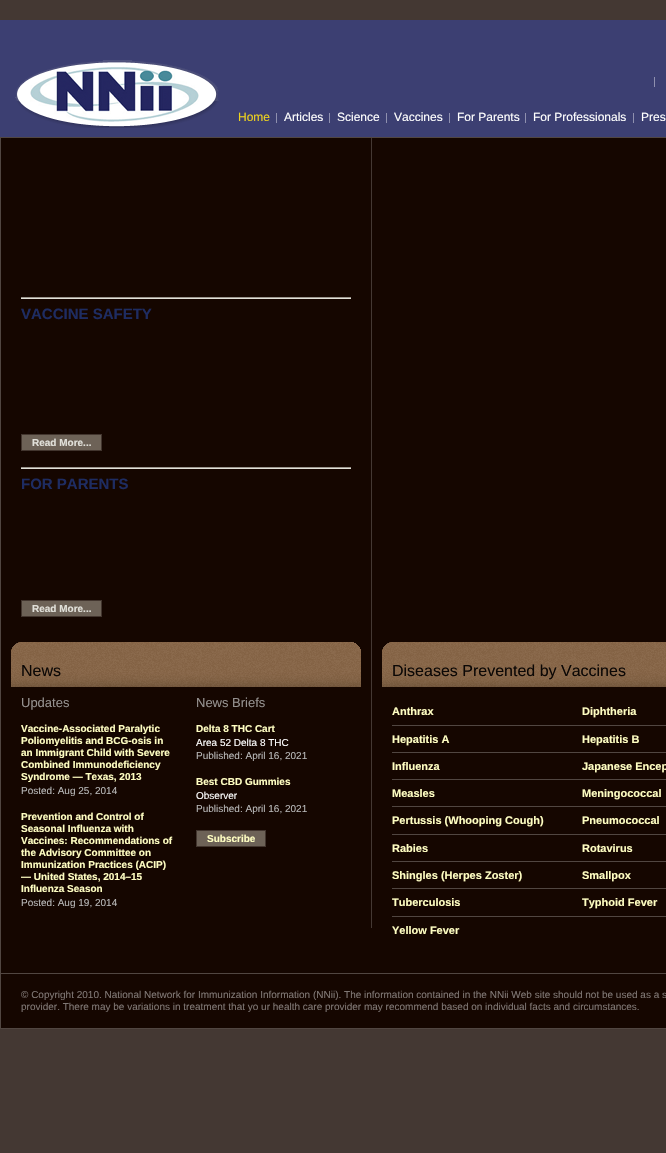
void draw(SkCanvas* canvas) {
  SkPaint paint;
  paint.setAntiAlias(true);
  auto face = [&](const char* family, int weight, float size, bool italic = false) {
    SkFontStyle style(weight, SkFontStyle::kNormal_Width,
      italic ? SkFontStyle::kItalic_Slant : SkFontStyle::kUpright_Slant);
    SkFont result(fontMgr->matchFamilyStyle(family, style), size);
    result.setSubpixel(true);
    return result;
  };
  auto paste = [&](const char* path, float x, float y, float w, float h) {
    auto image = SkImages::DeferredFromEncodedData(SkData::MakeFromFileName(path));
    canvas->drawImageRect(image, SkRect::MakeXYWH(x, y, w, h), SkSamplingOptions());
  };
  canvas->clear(0xff443833);
  paint.setColor(0xff3c3f72);
  canvas->drawRect(SkRect::MakeXYWH(0, 20, 666, 117), paint);
  paste("img/1.png", 15, 60, 204, 68);
  {
    const struct { float x, y, w, h; SkColor color; } items[] = {
      {654, 77, 1, 10, 0xff8f90af},
      {276, 113, 1, 10, 0xff8f90af},
      {329, 113, 1, 10, 0xff8f90af},
      {386, 113, 1, 10, 0xff8f90af},
      {449, 113, 1, 10, 0xff8f90af},
      {525, 113, 1, 10, 0xff8f90af},
      {633, 113, 1, 10, 0xff8f90af},
    };
    for (auto [x, y, w, h, color] : items) {
      paint.setColor(color);
      canvas->drawRect(SkRect::MakeXYWH(x, y, w, h), paint);
    }
  }
  paint.setColor(0xff150600);
  canvas->drawRect(SkRect::MakeXYWH(0.5f, 137.5f, 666, 891), paint);
  paint.setStroke(true);
  paint.setStrokeWidth(1);
  paint.setColor(0xff514641);
  canvas->drawRect(SkRect::MakeXYWH(0.5f, 137.5f, 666, 891), paint);
  paint.setStroke(false);
  {
    const struct { float x, y, w, h; SkColor color; } items[] = {
      {371, 138, 1, 790, 0xff443833},
      {21, 297, 330, 1, 0xff9a948c},
      {21, 298, 330, 1, 0xffe1e0d9},
    };
    for (auto [x, y, w, h, color] : items) {
      paint.setColor(color);
      canvas->drawRect(SkRect::MakeXYWH(x, y, w, h), paint);
    }
  }
  paint.setColor(0xff6d6257);
  canvas->drawRect(SkRect::MakeXYWH(21.5f, 434.5f, 80, 16), paint);
  paint.setStroke(true);
  paint.setColor(0xff42352e);
  canvas->drawRect(SkRect::MakeXYWH(21.5f, 434.5f, 80, 16), paint);
  paint.setStroke(false);
  paint.setColor(0xff9a948c);
  canvas->drawRect(SkRect::MakeXYWH(21, 467, 330, 1), paint);
  paint.setColor(0xffe1e0d9);
  canvas->drawRect(SkRect::MakeXYWH(21, 468, 330, 1), paint);
  paint.setColor(0xff6d6257);
  canvas->drawRect(SkRect::MakeXYWH(21.5f, 600.5f, 80, 16), paint);
  paint.setStroke(true);
  paint.setColor(0xff42352e);
  canvas->drawRect(SkRect::MakeXYWH(21.5f, 600.5f, 80, 16), paint);
  paste("img/2.png", 11, 642, 350, 45);
  paint.setStroke(false);
  paint.setColor(0xff6d6257);
  canvas->drawRect(SkRect::MakeXYWH(196.5f, 830.5f, 69, 16), paint);
  paint.setStroke(true);
  paint.setColor(0xff42352e);
  canvas->drawRect(SkRect::MakeXYWH(196.5f, 830.5f, 69, 16), paint);
  paste("img/3.png", 382, 642, 284, 45);
  paint.setStroke(false);
  {
    const struct { float x, y, w, h; SkColor color; } items[] = {
      {392, 725, 274, 1, 0xff514641},
      {392, 752, 274, 1, 0xff514641},
      {392, 779, 274, 1, 0xff514641},
      {392, 806, 274, 1, 0xff514641},
      {392, 834, 274, 1, 0xff514641},
      {392, 861, 274, 1, 0xff514641},
      {392, 888, 274, 1, 0xff514641},
      {392, 916, 274, 1, 0xff514641},
      {1, 973, 665, 1, 0xff514641},
    };
    for (auto [x, y, w, h, color] : items) {
      paint.setColor(color);
      canvas->drawRect(SkRect::MakeXYWH(x, y, w, h), paint);
    }
  }
  auto f0 = face("Liberation Sans", 400, 12);
  paint.setColor(0xffeed31e);
  canvas->drawString("Home", 238, 121, f0, paint);
  paint.setColor(0xffffffff);
  {
    const struct { const char* s; float x, y; } items[] = {
      {"Articles", 284, 121},
      {"Science", 337, 121},
      {"Vaccines", 394, 121},
      {"For Parents", 457, 121},
      {"For Professionals", 533, 121},
      {"Pres", 641, 121},
    };
    for (auto [s, x, y] : items) {
      canvas->drawString(s, x, y, f0, paint);
    }
  }
  auto f1 = face("Liberation Sans", 700, 15);
  paint.setColor(0xff1e2c62);
  canvas->drawString("VACCINE SAFETY", 21, 319, f1, paint);
  auto f2 = face("Liberation Sans", 700, 10);
  paint.setColor(0xffe1e0d9);
  canvas->drawString("Read More...", 32, 446, f2, paint);
  paint.setColor(0xff1e2c62);
  canvas->drawString("FOR PARENTS", 21, 489, f1, paint);
  paint.setColor(0xffe1e0d9);
  canvas->drawString("Read More...", 32, 612, f2, paint);
  auto f3 = face("Liberation Sans", 400, 16);
  paint.setColor(0xff0b0705);
  canvas->drawString("News", 21, 676, f3, paint);
  auto f4 = face("Liberation Sans", 400, 13);
  paint.setColor(0xff95918f);
  canvas->drawString("Updates", 21, 707, f4, paint);
  paint.setColor(0xfffffec2);
  {
    const struct { const char* s; float x, y; } items[] = {
      {"Vaccine-Associated Paralytic", 21, 732},
      {"Poliomyelitis and BCG-osis in", 21, 744},
      {"an Immigrant Child with Severe", 21, 756},
      {"Combined Immunodeficiency", 21, 768},
      {"Syndrome — Texas, 2013", 21, 780},
    };
    for (auto [s, x, y] : items) {
      canvas->drawString(s, x, y, f2, paint);
    }
  }
  auto f5 = face("Liberation Sans", 400, 10);
  paint.setColor(0xffb8b8b8);
  canvas->drawString("Posted: Aug 25, 2014", 21, 794, f5, paint);
  paint.setColor(0xfffffec2);
  {
    const struct { const char* s; float x, y; } items[] = {
      {"Prevention and Control of", 21, 820},
      {"Seasonal Influenza with", 21, 832},
      {"Vaccines: Recommendations of", 21, 844},
      {"the Advisory Committee on", 21, 856},
      {"Immunization Practices (ACIP)", 21, 868},
      {"— United States, 2014–15", 21, 880},
      {"Influenza Season", 21, 892},
    };
    for (auto [s, x, y] : items) {
      canvas->drawString(s, x, y, f2, paint);
    }
  }
  paint.setColor(0xffb8b8b8);
  canvas->drawString("Posted: Aug 19, 2014", 21, 906, f5, paint);
  paint.setColor(0xff95918f);
  canvas->drawString("News Briefs", 196, 707, f4, paint);
  paint.setColor(0xfffffec2);
  canvas->drawString("Delta 8 THC Cart", 196, 732, f2, paint);
  paint.setColor(0xffffffff);
  canvas->drawString("Area 52 Delta 8 THC", 196, 746, f5, paint);
  paint.setColor(0xffb8b8b8);
  canvas->drawString("Published: April 16, 2021", 196, 759, f5, paint);
  paint.setColor(0xfffffec2);
  canvas->drawString("Best CBD Gummies", 196, 785, f2, paint);
  paint.setColor(0xffffffff);
  canvas->drawString("Observer", 196, 799, f5, paint);
  paint.setColor(0xffb8b8b8);
  canvas->drawString("Published: April 16, 2021", 196, 812, f5, paint);
  paint.setColor(0xfffffec2);
  canvas->drawString("Subscribe", 207, 842, f2, paint);
  paint.setColor(0xff0b0705);
  canvas->drawString("Diseases Prevented by Vaccines", 392, 676, f3, paint);
  auto f6 = face("Liberation Sans", 700, 11);
  paint.setColor(0xfffffec2);
  {
    const struct { const char* s; float x, y; } items[] = {
      {"Anthrax", 392, 715},
      {"Diphtheria", 582, 715},
      {"Hepatitis A", 392, 743},
      {"Hepatitis B", 582, 743},
      {"Influenza", 392, 770},
      {"Japanese Encep", 582, 770},
      {"Measles", 392, 797},
      {"Meningococcal", 582, 797},
      {"Pertussis (Whooping Cough)", 392, 824},
      {"Pneumococcal", 582, 824},
      {"Rabies", 392, 852},
      {"Rotavirus", 582, 852},
      {"Shingles (Herpes Zoster)", 392, 879},
      {"Smallpox", 582, 879},
      {"Tuberculosis", 392, 906},
      {"Typhoid Fever", 582, 906},
      {"Yellow Fever", 392, 934},
    };
    for (auto [s, x, y] : items) {
      canvas->drawString(s, x, y, f6, paint);
    }
  }
  paint.setColor(0xff7f7774);
  canvas->drawString("© Copyright 2010. National Network for Immunization Information (NNii). The information contained in the NNii Web site should not be used as a s", 21, 998, f5, paint);
  canvas->drawString("provider. There may be variations in treatment that yo ur health care provider may recommend based on individual facts and circumstances.", 21, 1010, f5, paint);
}
